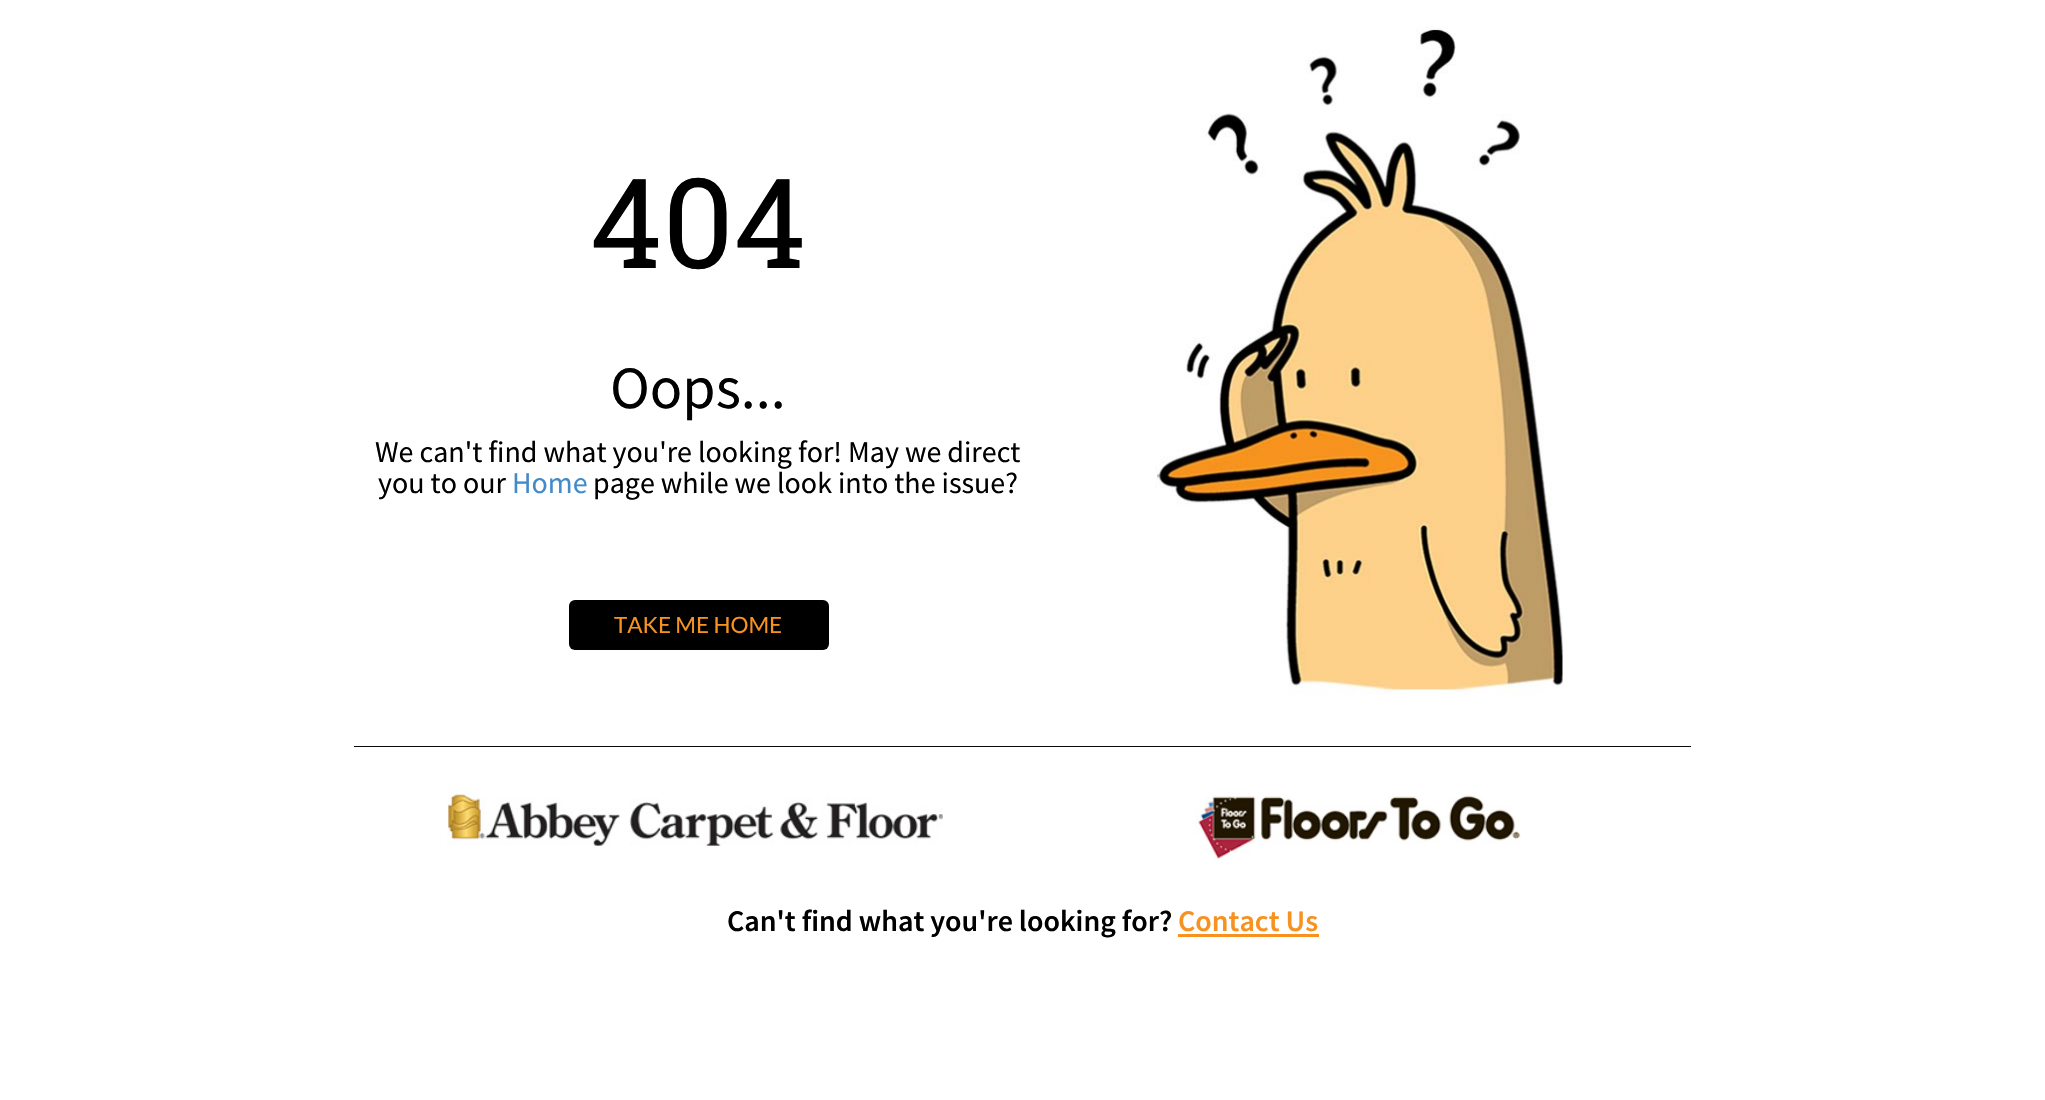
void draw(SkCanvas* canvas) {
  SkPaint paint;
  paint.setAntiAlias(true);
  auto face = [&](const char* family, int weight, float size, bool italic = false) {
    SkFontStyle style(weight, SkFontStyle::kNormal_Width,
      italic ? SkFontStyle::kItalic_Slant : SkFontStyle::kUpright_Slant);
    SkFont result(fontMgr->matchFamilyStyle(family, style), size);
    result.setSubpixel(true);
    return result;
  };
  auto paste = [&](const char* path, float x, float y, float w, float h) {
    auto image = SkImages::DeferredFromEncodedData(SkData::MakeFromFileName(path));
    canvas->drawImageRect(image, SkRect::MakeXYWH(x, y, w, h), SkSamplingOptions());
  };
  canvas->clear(0xffffffff);
  paint.setColor(0xff0b0b0b);
  canvas->drawRect(SkRect::MakeXYWH(354, 746, 1337, 1), paint);
  paint.setColor(0xff000000);
  canvas->drawRoundRect(SkRect::MakeXYWH(569, 600, 260, 50), 6, 6, paint);
  paste("img/1.png", 1155, 26, 408, 669);
  paste("img/2.png", 447, 789, 496, 57);
  paste("img/3.png", 1195, 795, 326, 66);
  paint.setColor(0xfff79220);
  canvas->drawRect(SkRect::MakeXYWH(1178, 934, 141, 3), paint);
  auto f0 = face("Roboto Slab", 400, 125);
  paint.setColor(0xff000000);
  canvas->drawString("404", 590, 268, f0, paint);
  auto f1 = face("Source Sans Pro", 400, 60);
  canvas->drawString("Oops...", 610, 408, f1, paint);
  auto f2 = face("Source Sans Pro", 400, 30);
  canvas->drawString("We can't find what you're looking for! May we direct", 375, 462, f2, paint);
  canvas->drawString("you to our", 378, 493, f2, paint);
  paint.setColor(0xff428bca);
  canvas->drawString("Home", 512, 493, f2, paint);
  paint.setColor(0xff000000);
  canvas->drawString("page while we look into the issue?", 593, 493, f2, paint);
  auto f3 = face("Lato", 400, 22.5f);
  paint.setColor(0xfff79220);
  canvas->drawString("TAKE ME HOME", 614, 633, f3, paint);
  auto f4 = face("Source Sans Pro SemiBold", 600, 30);
  paint.setColor(0xff000000);
  canvas->drawString("Can't find what you're looking for?", 727, 931, f4, paint);
  paint.setColor(0xfff79220);
  canvas->drawString("Contact Us", 1178, 931, f4, paint);
}
